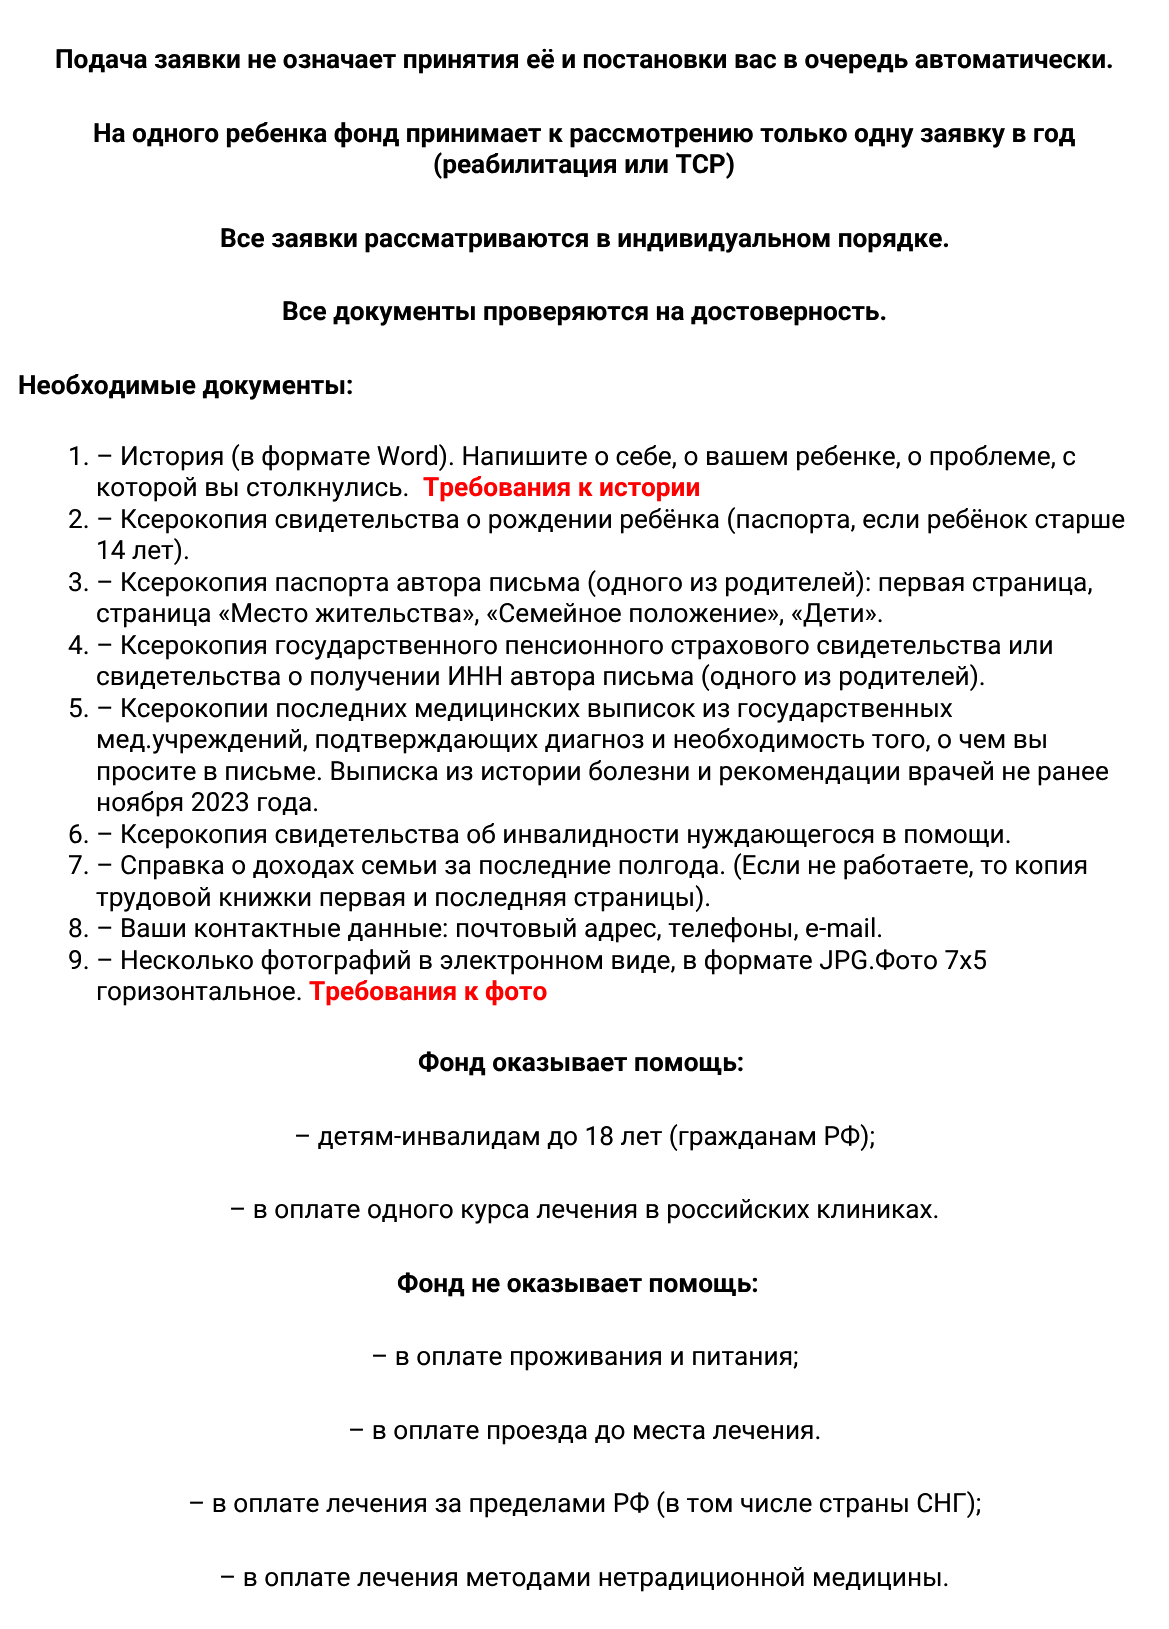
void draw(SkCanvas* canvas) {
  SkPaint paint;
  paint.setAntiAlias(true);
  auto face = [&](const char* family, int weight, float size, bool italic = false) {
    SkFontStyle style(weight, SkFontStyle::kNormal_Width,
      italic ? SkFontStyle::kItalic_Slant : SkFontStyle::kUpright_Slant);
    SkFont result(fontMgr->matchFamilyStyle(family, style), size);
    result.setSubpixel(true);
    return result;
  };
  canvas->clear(0xffffffff);
  auto f0 = face("Roboto", 700, 26.25f);
  paint.setColor(0xff000000);
  {
    const struct { const char* s; float x, y; } items[] = {
      {"Подача заявки не означает принятия её и постановки вас в очередь автоматически.", 55, 68},
      {"На одного ребенка фонд принимает к рассмотрению только одну заявку в год", 93, 142},
      {"(реабилитация или ТСР)", 433, 173},
      {"Все заявки рассматриваются в индивидуальном порядке.", 220, 247},
      {"Все документы проверяются на достоверность.", 282, 320},
      {"Необходимые документы:", 18, 394},
    };
    for (auto [s, x, y] : items) {
      canvas->drawString(s, x, y, f0, paint);
    }
  }
  auto f1 = face("Roboto", 400, 26.25f);
  canvas->drawString("1. – История (в формате Word). Напишите о себе, о вашем ребенке, о проблеме, с", 68, 465, f1, paint);
  canvas->drawString("которой вы столкнулись.", 96, 496, f1, paint);
  paint.setColor(0xffff0000);
  canvas->drawString("Требования к истории", 423, 496, f0, paint);
  paint.setColor(0xff000000);
  {
    const struct { const char* s; float x, y; } items[] = {
      {"2. – Ксерокопия свидетельства о рождении ребёнка (паспорта, если ребёнок старше", 68, 528},
      {"14 лет).", 96, 559},
      {"3. – Ксерокопия паспорта автора письма (одного из родителей): первая страница,", 68, 591},
      {"страница «Место жительства», «Семейное положение», «Дети».", 96, 622},
      {"4. – Ксерокопия государственного пенсионного страхового свидетельства или", 68, 654},
      {"свидетельства о получении ИНН автора письма (одного из родителей).", 96, 685},
      {"5. – Ксерокопии последних медицинских выписок из государственных", 68, 717},
      {"мед.учреждений, подтверждающих диагноз и необходимость того, о чем вы", 96, 748},
      {"просите в письме. Выписка из истории болезни и рекомендации врачей не ранее", 96, 780},
      {"ноября 2023 года.", 96, 811},
      {"6. – Ксерокопия свидетельства об инвалидности нуждающегося в помощи.", 68, 843},
      {"7. – Справка о доходах семьи за последние полгода. (Если не работаете, то копия", 68, 874},
      {"трудовой книжки первая и последняя страницы).", 96, 906},
      {"8. – Ваши контактные данные: почтовый адрес, телефоны, e-mail.", 68, 937},
      {"9. – Несколько фотографий в электронном виде, в формате JPG.Фото 7х5", 68, 969},
      {"горизонтальное.", 96, 1000},
    };
    for (auto [s, x, y] : items) {
      canvas->drawString(s, x, y, f1, paint);
    }
  }
  paint.setColor(0xffff0000);
  canvas->drawString("Требования к фото", 309, 1000, f0, paint);
  paint.setColor(0xff000000);
  canvas->drawString("Фонд оказывает помощь:", 418, 1071, f0, paint);
  canvas->drawString("– детям-инвалидам до 18 лет (гражданам РФ);", 294, 1145, f1, paint);
  canvas->drawString("– в оплате одного курса лечения в российских клиниках.", 229, 1218, f1, paint);
  canvas->drawString("Фонд не оказывает помощь:", 397, 1292, f0, paint);
  {
    const struct { const char* s; float x, y; } items[] = {
      {"– в оплате проживания и питания;", 371, 1365},
      {"– в оплате проезда до места лечения.", 348, 1439},
      {"– в оплате лечения за пределами РФ (в том числе страны СНГ);", 188, 1512},
      {"– в оплате лечения методами нетрадиционной медицины.", 219, 1586},
    };
    for (auto [s, x, y] : items) {
      canvas->drawString(s, x, y, f1, paint);
    }
  }
}
